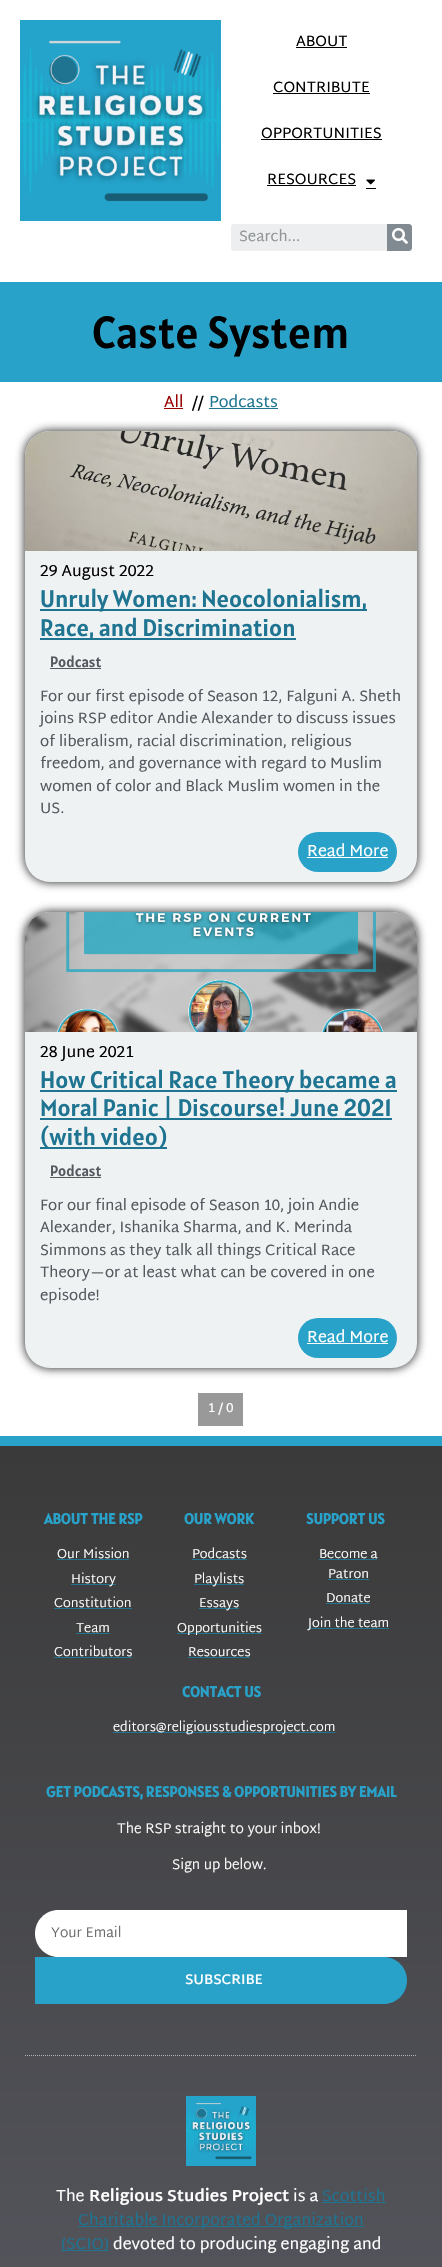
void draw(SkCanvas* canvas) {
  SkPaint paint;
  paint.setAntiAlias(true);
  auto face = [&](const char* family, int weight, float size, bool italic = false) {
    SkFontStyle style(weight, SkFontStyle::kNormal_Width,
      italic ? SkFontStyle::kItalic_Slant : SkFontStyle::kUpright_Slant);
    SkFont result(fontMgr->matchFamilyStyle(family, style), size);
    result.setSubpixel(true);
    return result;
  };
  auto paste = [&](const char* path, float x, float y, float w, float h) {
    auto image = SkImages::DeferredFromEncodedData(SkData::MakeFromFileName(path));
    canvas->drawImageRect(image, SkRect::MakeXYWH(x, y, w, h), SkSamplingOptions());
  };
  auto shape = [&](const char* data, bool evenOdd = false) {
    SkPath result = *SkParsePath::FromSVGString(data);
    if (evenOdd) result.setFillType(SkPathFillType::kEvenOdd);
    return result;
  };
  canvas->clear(0xffffffff);
  paste("img/1.png", 20, 20, 201, 201);
  {
    const struct { float x, y, w, h; SkColor color; } items[] = {
      {296, 47, 51, 1, 0xff000000},
      {273, 93, 97, 1, 0xff000000},
      {261, 139, 121, 1, 0xff000000},
      {267, 185, 89, 1, 0xff000000},
    };
    for (auto [x, y, w, h, color] : items) {
      paint.setColor(color);
      canvas->drawRect(SkRect::MakeXYWH(x, y, w, h), paint);
    }
  }
  paste("img/2.png", 366, 179, 9, 6);
  canvas->drawRect(SkRect::MakeXYWH(366, 188, 10, 1), paint);
  paint.setColor(0xffeceeef);
  canvas->drawRoundRect(SkRect::MakeXYWH(231, 224, 181, 27), 3, 3, paint);
  paint.setColor(0xff818a91);
  canvas->drawPath(shape("M387 224H409C410.5 224 412 225.5 412 227V248C412 249.5 410.5 251 409 251H387Z"), paint);
  paste("img/3.png", 392, 228, 16, 16);
  {
    const struct { float x, y, w, h; SkColor color; } items[] = {
      {0, 282, 442, 100, 0xff29a2ca},
      {164, 408, 19, 1, 0xff990000},
      {209, 408, 69, 1, 0xff1e7491},
    };
    for (auto [x, y, w, h, color] : items) {
      paint.setColor(color);
      canvas->drawRect(SkRect::MakeXYWH(x, y, w, h), paint);
    }
  }
  paint.setColor(0x80000000);
  paint.setMaskFilter(SkMaskFilter::MakeBlur(kNormal_SkBlurStyle, 5));
  canvas->drawRoundRect(SkRect::MakeXYWH(25, 431, 392, 451), 25, 25, paint);
  paint.setMaskFilter(nullptr);
  paint.setMaskFilter(SkMaskFilter::MakeBlur(kNormal_SkBlurStyle, 5));
  canvas->drawRoundRect(SkRect::MakeXYWH(25, 431, 392, 451), 25, 25, paint);
  paint.setMaskFilter(nullptr);
  paint.setColor(0xffeff2f3);
  canvas->drawRoundRect(SkRect::MakeXYWH(25, 431, 392, 451), 25, 25, paint);
  paste("img/4.png", 25, 431, 392, 120);
  {
    const struct { float x, y, w, h; SkColor color; } items[] = {
      {40, 609, 327, 2, 0xff1e7491},
      {40, 638, 256, 2, 0xff1e7491},
      {50, 668, 51, 1, 0xff54595f},
    };
    for (auto [x, y, w, h, color] : items) {
      paint.setColor(color);
      canvas->drawRect(SkRect::MakeXYWH(x, y, w, h), paint);
    }
  }
  paint.setColor(0xff29a2ca);
  canvas->drawRoundRect(SkRect::MakeXYWH(298, 832, 99, 40), 20, 20, paint);
  paint.setColor(0xffffffff);
  canvas->drawRect(SkRect::MakeXYWH(307, 857, 81, 1), paint);
  paint.setColor(0x80000000);
  paint.setMaskFilter(SkMaskFilter::MakeBlur(kNormal_SkBlurStyle, 5));
  canvas->drawRoundRect(SkRect::MakeXYWH(25, 912, 392, 456), 25, 25, paint);
  paint.setMaskFilter(nullptr);
  paint.setMaskFilter(SkMaskFilter::MakeBlur(kNormal_SkBlurStyle, 5));
  canvas->drawRoundRect(SkRect::MakeXYWH(25, 912, 392, 456), 25, 25, paint);
  paint.setMaskFilter(nullptr);
  paint.setColor(0xffeff2f3);
  canvas->drawRoundRect(SkRect::MakeXYWH(25, 912, 392, 456), 25, 25, paint);
  paste("img/5.png", 25, 912, 392, 120);
  {
    const struct { float x, y, w, h; SkColor color; } items[] = {
      {40, 1090, 357, 2, 0xff1e7491},
      {40, 1118, 352, 2, 0xff1e7491},
      {40, 1147, 127, 2, 0xff1e7491},
      {50, 1177, 51, 1, 0xff54595f},
    };
    for (auto [x, y, w, h, color] : items) {
      paint.setColor(color);
      canvas->drawRect(SkRect::MakeXYWH(x, y, w, h), paint);
    }
  }
  paint.setColor(0xff29a2ca);
  canvas->drawRoundRect(SkRect::MakeXYWH(298, 1318, 99, 40), 20, 20, paint);
  paint.setColor(0xffffffff);
  canvas->drawRect(SkRect::MakeXYWH(307, 1343, 81, 1), paint);
  paint.setColor(0xff999999);
  canvas->drawRect(SkRect::MakeXYWH(198, 1393, 45, 33), paint);
  {
    const SkColor colors[] = {0xff575860, 0xff3a3a3a};
    const float stops[] = {0, 1};
    const SkPoint ends[] = {{221, 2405}, {221, 1446}};
    paint.setShader(SkGradientShader::MakeLinear(ends, colors, stops, 2, SkTileMode::kClamp));
    paint.setAlpha(255);
  }
  canvas->drawRect(SkRect::MakeXYWH(0, 1446, 442, 821), paint);
  paint.setShader(nullptr);
  {
    const struct { float x, y, w, h; SkColor color; } items[] = {
      {0, 1436, 442, 10, 0xff29a2ca},
      {57, 1559, 72, 1, 0xff1e7491},
      {71, 1584, 45, 1, 0xff1e7491},
      {54, 1608, 78, 1, 0xff1e7491},
      {76, 1633, 34, 1, 0xff1e7491},
      {54, 1657, 78, 1, 0xff1e7491},
      {192, 1559, 55, 1, 0xff1e7491},
      {194, 1584, 50, 1, 0xff1e7491},
      {199, 1608, 40, 1, 0xff1e7491},
      {177, 1633, 85, 1, 0xff1e7491},
      {188, 1657, 62, 1, 0xff1e7491},
      {319, 1559, 58, 1, 0xff1e7491},
      {328, 1579, 41, 1, 0xff1e7491},
      {326, 1603, 44, 1, 0xff1e7491},
      {308, 1628, 81, 1, 0xff1e7491},
      {113, 1732, 222, 1, 0xff1e7491},
    };
    for (auto [x, y, w, h, color] : items) {
      paint.setColor(color);
      canvas->drawRect(SkRect::MakeXYWH(x, y, w, h), paint);
    }
  }
  paint.setColor(0xffffffff);
  canvas->drawPath(shape("M58.5 1910H407V1957H58.5C45.5 1957 35 1946.5 35 1933.5C35 1920.5 45.5 1910 58.5 1910Z"), paint);
  paint.setColor(0xff29a2ca);
  canvas->drawPath(shape("M35 1957H383.5C396.5 1957 407 1967.5 407 1980.5C407 1993.5 396.5 2004 383.5 2004H35Z"), paint);
  paint.setStroke(true);
  paint.setStrokeWidth(1);
  paint.setColor(0xffb0b1b3);
  paint.setPathEffect(SkDashPathEffect::Make({{1, 1}}, 0));
  canvas->drawPath(shape("M25 2055.5H417"), paint);
  paint.setPathEffect(nullptr);
  paste("img/6.png", 186, 2096, 70, 70);
  paint.setStroke(false);
  {
    const struct { float x, y, w, h; SkColor color; } items[] = {
      {322, 2202, 64, 1, 0xff1e7491},
      {78, 2226, 286, 1, 0xff1e7491},
      {61, 2250, 48, 1, 0xff1e7491},
    };
    for (auto [x, y, w, h, color] : items) {
      paint.setColor(color);
      canvas->drawRect(SkRect::MakeXYWH(x, y, w, h), paint);
    }
  }
  auto f0 = face("Martel Sans", 400, 15);
  paint.setColor(0xff000000);
  {
    const struct { const char* s; float x, y; } items[] = {
      {"ABOUT", 296, 46},
      {"CONTRIBUTE", 273, 92},
      {"OPPORTUNITIES", 261, 138},
      {"RESOURCES", 267, 184},
    };
    for (auto [s, x, y] : items) {
      canvas->drawString(s, x, y, f0, paint);
    }
  }
  paint.setColor(0xff919597);
  canvas->drawString("Search...", 239, 241, f0, paint);
  auto f1 = face("Alatsi", 400, 45);
  paint.setColor(0xff000000);
  canvas->drawString("Caste System", 92, 348, f1, paint);
  auto f2 = face("Martel Sans", 400, 16);
  paint.setColor(0xff990000);
  canvas->drawString("All", 164, 407, f2, paint);
  paint.setColor(0xff000000);
  canvas->drawString("//", 192, 407, f2, paint);
  paint.setColor(0xff1e7491);
  canvas->drawString("Podcasts", 209, 407, f2, paint);
  paint.setColor(0xff000000);
  canvas->drawString("29 August 2022", 40, 576, f2, paint);
  auto f3 = face("Alatsi", 400, 24);
  paint.setColor(0xff1e7491);
  canvas->drawString("Unruly Women: Neocolonialism,", 40, 607, f3, paint);
  canvas->drawString("Race, and Discrimination", 40, 636, f3, paint);
  auto f4 = face("Alatsi", 400, 15);
  paint.setColor(0xff54595f);
  canvas->drawString("Podcast", 50, 667, f4, paint);
  {
    const struct { const char* s; float x, y; } items[] = {
      {"For our first episode of Season 12, Falguni A. Sheth", 40, 701},
      {"joins RSP editor Andie Alexander to discuss issues", 40, 723},
      {"of liberalism, racial discrimination, religious", 40, 746},
      {"freedom, and governance with regard to Muslim", 40, 768},
      {"women of color and Black Muslim women in the", 40, 791},
      {"US.", 40, 813},
    };
    for (auto [s, x, y] : items) {
      canvas->drawString(s, x, y, f0, paint);
    }
  }
  paint.setColor(0xffffffff);
  canvas->drawString("Read More", 307, 856, f2, paint);
  paint.setColor(0xff000000);
  canvas->drawString("28 June 2021", 40, 1057, f2, paint);
  paint.setColor(0xff1e7491);
  {
    const struct { const char* s; float x, y; } items[] = {
      {"How Critical Race Theory became a", 40, 1088},
      {"Moral Panic | Discourse! June 2021", 40, 1116},
      {"(with video)", 40, 1145},
    };
    for (auto [s, x, y] : items) {
      canvas->drawString(s, x, y, f3, paint);
    }
  }
  paint.setColor(0xff54595f);
  canvas->drawString("Podcast", 50, 1176, f4, paint);
  {
    const struct { const char* s; float x, y; } items[] = {
      {"For our final episode of Season 10, join Andie", 40, 1210},
      {"Alexander, Ishanika Sharma, and K. Merinda", 40, 1232},
      {"Simmons as they talk all things Critical Race", 40, 1255},
      {"Theory—or at least what can be covered in one", 40, 1277},
      {"episode!", 40, 1300},
    };
    for (auto [s, x, y] : items) {
      canvas->drawString(s, x, y, f0, paint);
    }
  }
  paint.setColor(0xffffffff);
  canvas->drawString("Read More", 307, 1342, f2, paint);
  auto f5 = face("Martel Sans", 400, 13);
  canvas->drawString("1 / 0", 208, 1412, f5, paint);
  auto f6 = face("Alatsi", 700, 15);
  paint.setColor(0xff29a2ca);
  canvas->drawString("ABOUT THE RSP", 44, 1524, f6, paint);
  auto f7 = face("Martel Sans", 300, 13);
  paint.setColor(0xffffffff);
  {
    const struct { const char* s; float x, y; } items[] = {
      {"Our Mission", 57, 1558},
      {"History", 71, 1583},
      {"Constitution", 54, 1607},
      {"Team", 76, 1632},
      {"Contributors", 54, 1656},
    };
    for (auto [s, x, y] : items) {
      canvas->drawString(s, x, y, f7, paint);
    }
  }
  paint.setColor(0xff29a2ca);
  canvas->drawString("OUR WORK", 184, 1524, f6, paint);
  paint.setColor(0xffffffff);
  {
    const struct { const char* s; float x, y; } items[] = {
      {"Podcasts", 192, 1558},
      {"Playlists", 194, 1583},
      {"Essays", 199, 1607},
      {"Opportunities", 177, 1632},
      {"Resources", 188, 1656},
    };
    for (auto [s, x, y] : items) {
      canvas->drawString(s, x, y, f7, paint);
    }
  }
  paint.setColor(0xff29a2ca);
  canvas->drawString("SUPPORT US", 306, 1524, f6, paint);
  paint.setColor(0xffffffff);
  {
    const struct { const char* s; float x, y; } items[] = {
      {"Become a", 319, 1558},
      {"Patron", 328, 1578},
      {"Donate", 326, 1602},
      {"Join the team", 308, 1627},
    };
    for (auto [s, x, y] : items) {
      canvas->drawString(s, x, y, f7, paint);
    }
  }
  paint.setColor(0xff29a2ca);
  canvas->drawString("CONTACT US", 182, 1697, f6, paint);
  paint.setColor(0xffffffff);
  canvas->drawString("editors@religiousstudiesproject.com", 113, 1731, f7, paint);
  paint.setColor(0xff29a2ca);
  canvas->drawString("GET PODCASTS, RESPONSES & OPPORTUNITIES BY EMAIL", 46, 1797, f6, paint);
  auto f8 = face("Martel Sans", 300, 14);
  paint.setColor(0xffffffff);
  canvas->drawString("The RSP straight to your inbox!", 117, 1833, f8, paint);
  canvas->drawString("Sign up below.", 172, 1869, f8, paint);
  paint.setColor(0xff666666);
  canvas->drawString("Your Email", 51, 1937, f8, paint);
  auto f9 = face("Martel Sans", 600, 14);
  paint.setColor(0xffffffff);
  canvas->drawString("SUBSCRIBE", 185, 1984, f9, paint);
  canvas->drawString("The", 56, 2201, f2, paint);
  auto f10 = face("Martel Sans", 700, 16);
  canvas->drawString("Religious Studies Project", 89, 2201, f10, paint);
  canvas->drawString("is a", 293, 2201, f2, paint);
  paint.setColor(0xff1e7491);
  {
    const struct { const char* s; float x, y; } items[] = {
      {"Scottish", 322, 2201},
      {"Charitable Incorporated Organization", 78, 2225},
      {"(SCIO)", 61, 2249},
    };
    for (auto [s, x, y] : items) {
      canvas->drawString(s, x, y, f2, paint);
    }
  }
  paint.setColor(0xffffffff);
  canvas->drawString("devoted to producing engaging and", 113, 2249, f2, paint);
}
